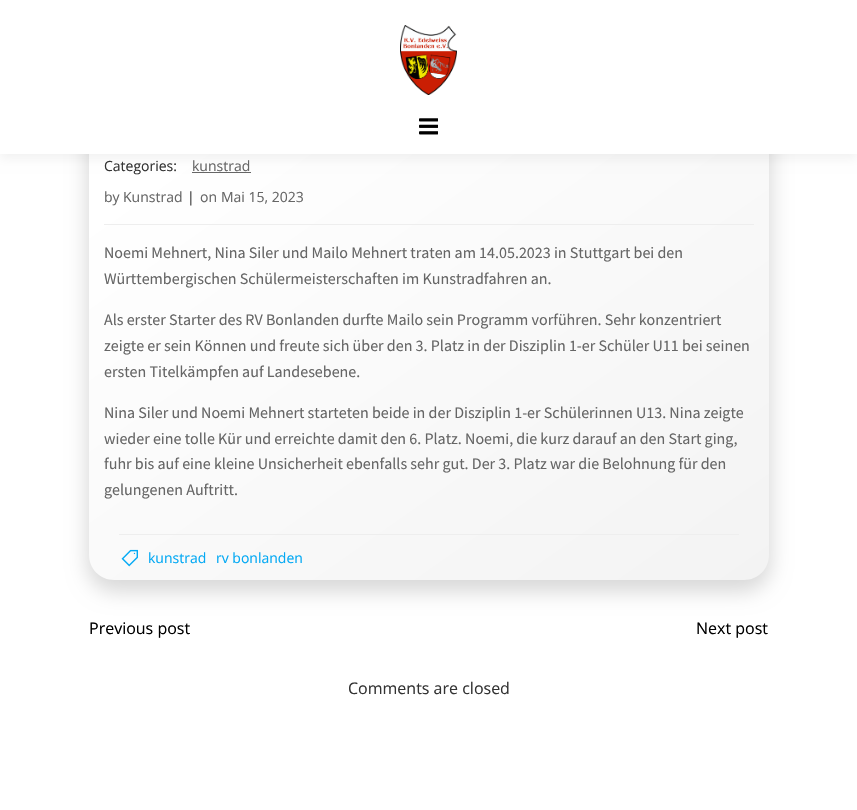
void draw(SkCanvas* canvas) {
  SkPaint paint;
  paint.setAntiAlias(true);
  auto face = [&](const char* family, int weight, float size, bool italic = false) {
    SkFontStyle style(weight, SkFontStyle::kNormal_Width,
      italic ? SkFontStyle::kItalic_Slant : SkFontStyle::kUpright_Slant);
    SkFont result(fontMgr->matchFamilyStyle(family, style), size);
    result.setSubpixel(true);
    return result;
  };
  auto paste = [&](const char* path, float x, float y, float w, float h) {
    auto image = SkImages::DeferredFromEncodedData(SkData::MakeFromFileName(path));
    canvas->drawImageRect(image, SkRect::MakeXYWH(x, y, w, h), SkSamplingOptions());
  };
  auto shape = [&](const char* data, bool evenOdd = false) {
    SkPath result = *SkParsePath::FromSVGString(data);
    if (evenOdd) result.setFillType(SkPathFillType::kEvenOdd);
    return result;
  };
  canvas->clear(0xffffffff);
  paint.setColor(0x26000000);
  paint.setMaskFilter(SkMaskFilter::MakeBlur(kNormal_SkBlurStyle, 10));
  canvas->drawRoundRect(SkRect::MakeXYWH(87, -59, 684, 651), 29, 29, paint);
  paint.setMaskFilter(nullptr);
  {
    const SkColor colors[] = {0xffffffff, 0xfff3f3f3};
    const float stops[] = {0.42f, 1};
    const SkPoint ends[] = {{83, -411}, {775, 576}};
    paint.setShader(SkGradientShader::MakeLinear(ends, colors, stops, 2, SkTileMode::kClamp));
    paint.setAlpha(255);
  }
  canvas->drawPath(shape("M116-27H742C757-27 769-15 769 0V555C769 569 758 580 744 580H114C100 580 89 569 89 555V0C89-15 101-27 116-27Z"), paint);
  paint.setShader(nullptr);
  paint.setColor(0xff666666);
  canvas->drawRect(SkRect::MakeXYWH(192, 172, 59, 1), paint);
  paint.setColor(0x0d000000);
  paint.setMaskFilter(SkMaskFilter::MakeBlur(kNormal_SkBlurStyle, 5));
  canvas->drawRect(SkRect::MakeXYWH(0, 5, 857, 154), paint);
  paint.setMaskFilter(nullptr);
  paint.setColor(0xffffffff);
  canvas->drawRect(SkRect::MakeXYWH(0, 0, 857, 154), paint);
  paste("img/1.png", 400, 25, 57, 70);
  paste("img/2.png", 419, 118, 19, 17);
  paint.setColor(0xffeeeeee);
  canvas->drawRect(SkRect::MakeXYWH(104, 224, 650, 1), paint);
  canvas->drawRect(SkRect::MakeXYWH(119, 534, 620, 1), paint);
  paste("img/3.png", 121, 549, 17, 18);
  auto f0 = face("Open Sans", 400, 14);
  paint.setColor(0xff333333);
  canvas->drawString("Categories:", 104, 171, f0, paint);
  paint.setColor(0xff666666);
  {
    const struct { const char* s; float x, y; } items[] = {
      {"kunstrad", 192, 171},
      {"by", 104, 202},
      {"Kunstrad", 123, 202},
    };
    for (auto [s, x, y] : items) {
      canvas->drawString(s, x, y, f0, paint);
    }
  }
  paint.setColor(0xff333333);
  canvas->drawString("|", 187, 202, f0, paint);
  paint.setColor(0xff666666);
  canvas->drawString("on", 200, 202, f0, paint);
  canvas->drawString("Mai 15, 2023", 221, 202, f0, paint);
  auto f1 = face("Source Sans Pro", 400, 16);
  {
    const struct { const char* s; float x, y; } items[] = {
      {"Noemi Mehnert, Nina Siler und Mailo Mehnert traten am 14.05.2023 in Stuttgart bei den", 104, 258},
      {"Württembergischen Schülermeisterschaften im Kunstradfahren an.", 104, 284},
      {"Als erster Starter des RV Bonlanden durfte Mailo sein Programm vorführen. Sehr konzentriert", 104, 325},
      {"zeigte er sein Können und freute sich über den 3. Platz in der Disziplin 1-er Schüler U11 bei seinen", 104, 351},
      {"ersten Titelkämpfen auf Landesebene.", 104, 377},
      {"Nina Siler und Noemi Mehnert starteten beide in der Disziplin 1-er Schülerinnen U13. Nina zeigte", 104, 418},
      {"wieder eine tolle Kür und erreichte damit den 6. Platz. Noemi, die kurz darauf an den Start ging,", 104, 444},
      {"fuhr bis auf eine kleine Unsicherheit ebenfalls sehr gut. Der 3. Platz war die Belohnung für den", 104, 469},
      {"gelungenen Auftritt.", 104, 495},
    };
    for (auto [s, x, y] : items) {
      canvas->drawString(s, x, y, f1, paint);
    }
  }
  paint.setColor(0xff03a9f4);
  canvas->drawString("kunstrad", 148, 563, f0, paint);
  canvas->drawString("rv bonlanden", 216, 563, f0, paint);
  auto f2 = face("Open Sans", 400, 16);
  paint.setColor(0xff000000);
  canvas->drawString("Previous post", 89, 634, f2, paint);
  canvas->drawString("Next post", 696, 634, f2, paint);
  paint.setColor(0xff333333);
  canvas->drawString("Comments are closed", 348, 694, f2, paint);
}
